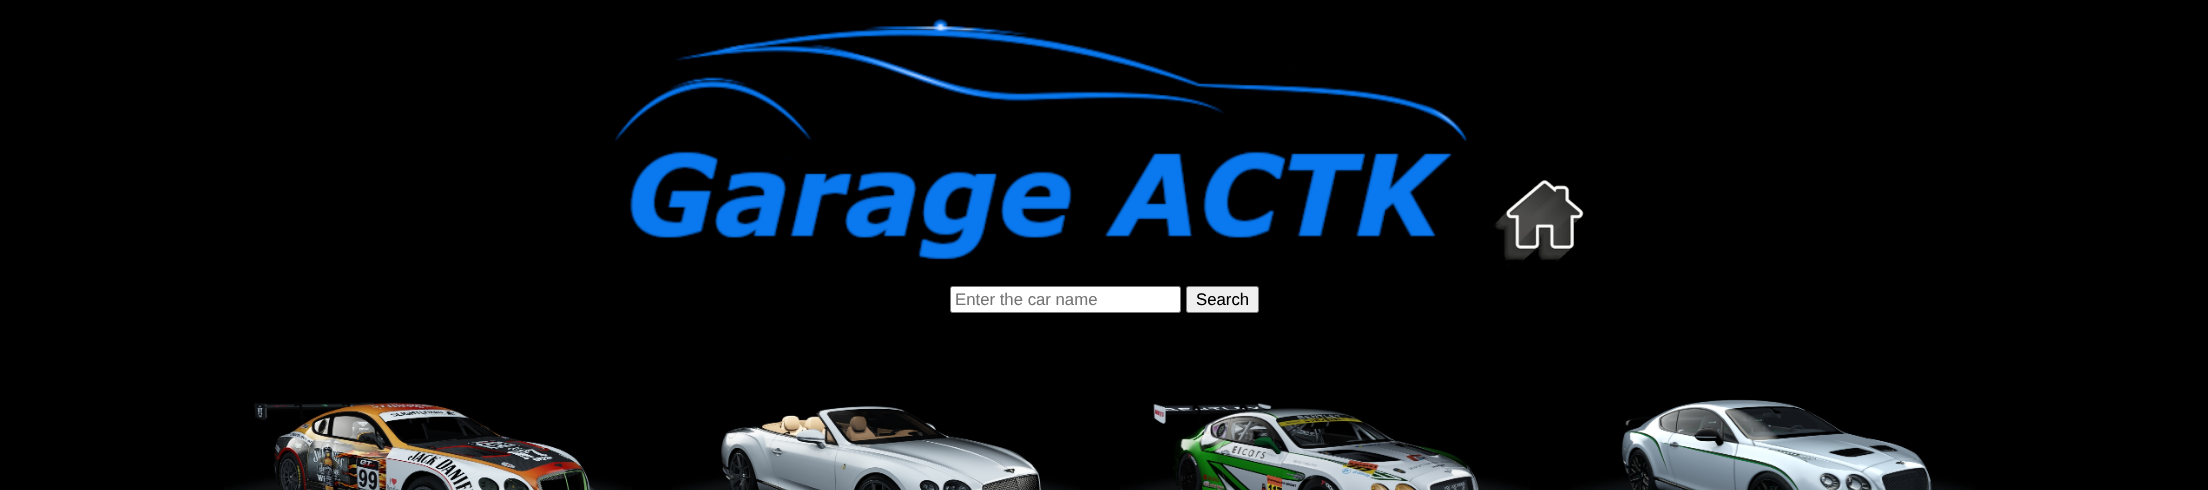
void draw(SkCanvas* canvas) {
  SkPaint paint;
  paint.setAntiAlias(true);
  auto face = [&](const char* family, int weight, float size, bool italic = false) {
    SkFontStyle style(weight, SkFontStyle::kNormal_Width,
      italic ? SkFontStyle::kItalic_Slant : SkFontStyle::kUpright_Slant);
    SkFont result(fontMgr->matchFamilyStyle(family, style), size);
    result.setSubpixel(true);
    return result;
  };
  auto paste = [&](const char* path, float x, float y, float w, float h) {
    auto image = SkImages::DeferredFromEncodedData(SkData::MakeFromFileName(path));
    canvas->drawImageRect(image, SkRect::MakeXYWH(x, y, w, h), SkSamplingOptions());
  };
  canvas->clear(0xff000000);
  paste("img/1.png", 615, 18, 853, 242);
  paste("img/2.png", 1492, 180, 92, 86);
  paint.setColor(0xffffffff);
  canvas->drawRoundRect(SkRect::MakeXYWH(950.5f, 286.5f, 230, 26), 2, 2, paint);
  paint.setStroke(true);
  paint.setStrokeWidth(1);
  paint.setColor(0xff767676);
  canvas->drawRoundRect(SkRect::MakeXYWH(950.5f, 286.5f, 230, 26), 2, 2, paint);
  paint.setStroke(false);
  paint.setColor(0xffefefef);
  canvas->drawRoundRect(SkRect::MakeXYWH(1186.5f, 286.5f, 72, 26), 2, 2, paint);
  paint.setStroke(true);
  paint.setColor(0xff767676);
  canvas->drawRoundRect(SkRect::MakeXYWH(1186.5f, 286.5f, 72, 26), 2, 2, paint);
  paste("img/3.png", 224, 402, 409, 88);
  paste("img/4.png", 671, 406, 410, 84);
  paste("img/5.png", 1120, 403, 410, 87);
  paste("img/6.png", 1571, 399, 404, 91);
  auto f0 = face("Liberation Sans", 400, 16.75f);
  paint.setStroke(false);
  paint.setColor(0xff757575);
  canvas->drawString("Enter the car name", 955, 305, f0, paint);
  paint.setColor(0xff000000);
  canvas->drawString("Search", 1196, 305, f0, paint);
}
